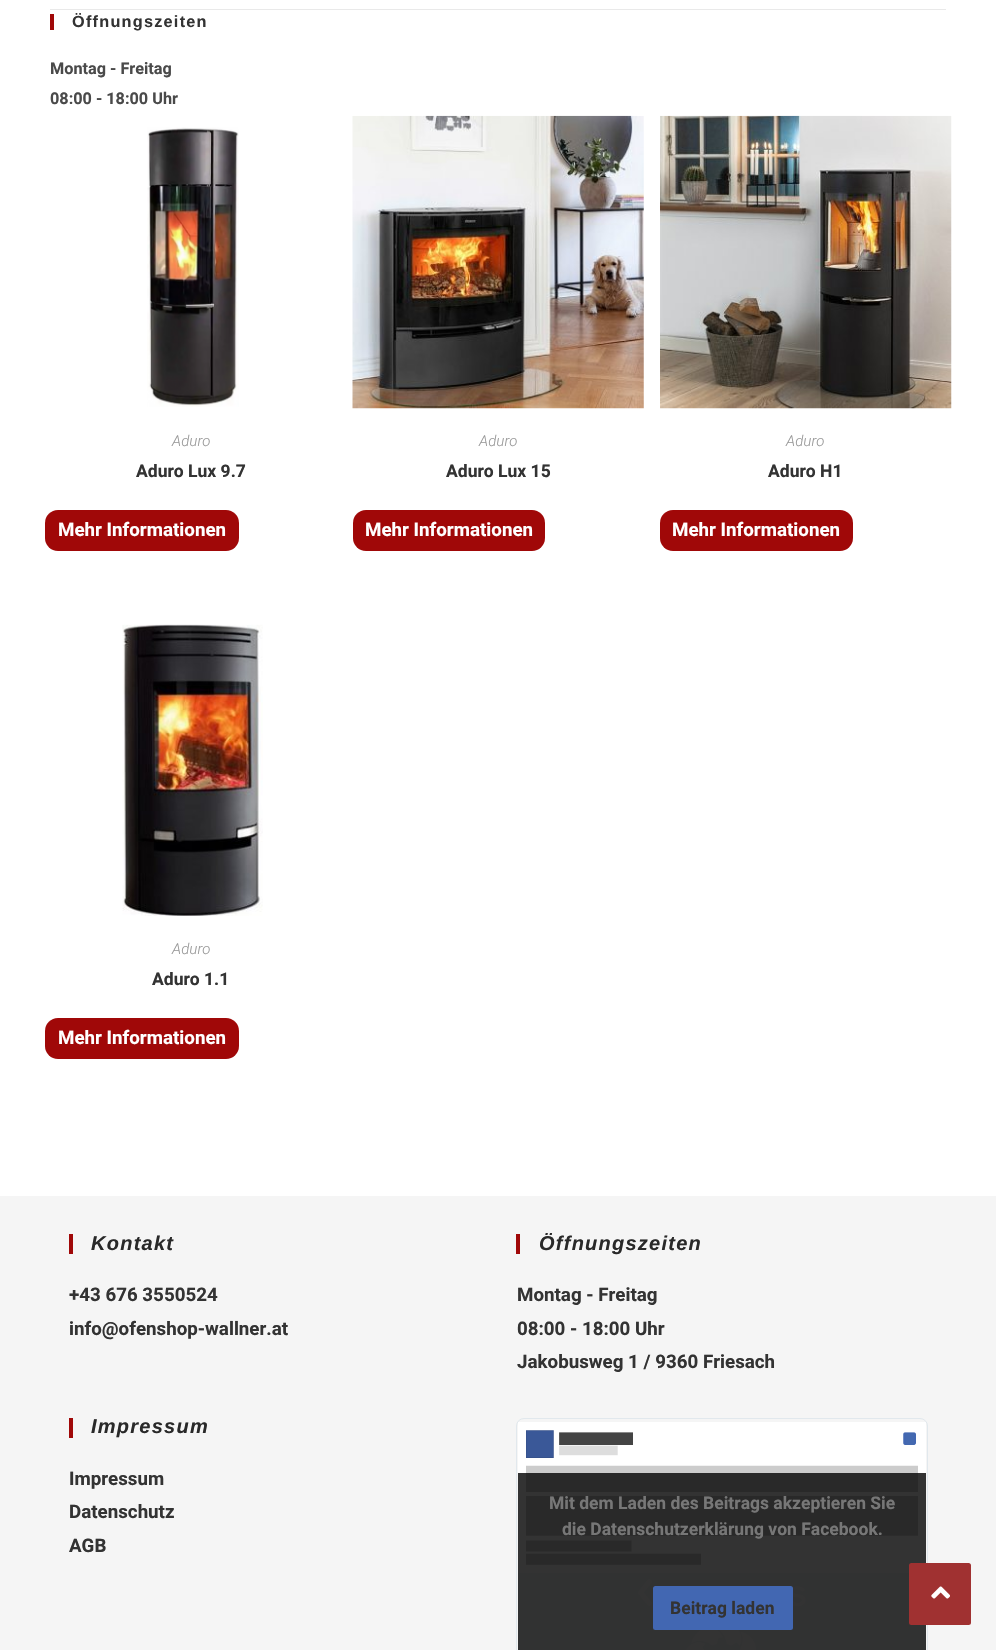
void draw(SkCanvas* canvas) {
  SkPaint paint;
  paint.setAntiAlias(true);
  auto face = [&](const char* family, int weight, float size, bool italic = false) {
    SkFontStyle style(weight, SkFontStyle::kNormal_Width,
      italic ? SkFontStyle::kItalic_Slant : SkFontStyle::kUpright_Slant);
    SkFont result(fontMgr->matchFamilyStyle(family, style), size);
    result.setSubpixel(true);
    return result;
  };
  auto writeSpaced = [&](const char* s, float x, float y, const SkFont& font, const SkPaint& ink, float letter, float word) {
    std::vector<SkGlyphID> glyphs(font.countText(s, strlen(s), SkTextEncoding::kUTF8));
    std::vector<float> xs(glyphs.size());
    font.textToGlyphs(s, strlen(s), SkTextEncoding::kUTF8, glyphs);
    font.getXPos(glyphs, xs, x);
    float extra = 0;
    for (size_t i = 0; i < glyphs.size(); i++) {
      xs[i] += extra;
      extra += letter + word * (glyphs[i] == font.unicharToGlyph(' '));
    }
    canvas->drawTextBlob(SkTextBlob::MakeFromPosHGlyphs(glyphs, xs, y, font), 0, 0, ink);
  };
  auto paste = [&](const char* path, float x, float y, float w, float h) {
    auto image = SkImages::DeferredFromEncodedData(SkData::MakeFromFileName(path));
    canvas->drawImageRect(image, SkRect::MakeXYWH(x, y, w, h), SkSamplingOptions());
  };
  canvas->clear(0xffffffff);
  paint.setColor(0xffe9e9e9);
  canvas->drawRect(SkRect::MakeXYWH(50, 9, 896, 1), paint);
  paint.setColor(0xffa00808);
  canvas->drawRect(SkRect::MakeXYWH(50, 14, 4, 16), paint);
  paste("img/1.png", 147, 127, 92, 280);
  canvas->drawRoundRect(SkRect::MakeXYWH(45, 510, 194, 41), 13, 13, paint);
  paste("img/2.png", 352, 115, 292, 294);
  canvas->drawRoundRect(SkRect::MakeXYWH(353, 510, 192, 41), 13, 13, paint);
  paste("img/3.png", 660, 115, 292, 294);
  canvas->drawRoundRect(SkRect::MakeXYWH(660, 510, 193, 41), 13, 13, paint);
  paste("img/4.png", 122, 624, 141, 292);
  canvas->drawRoundRect(SkRect::MakeXYWH(45, 1018, 194, 41), 13, 13, paint);
  {
    const struct { float x, y, w, h; SkColor color; } items[] = {
      {0, 1196, 996, 454, 0xfff5f5f5},
      {69, 1234, 4, 20, 0xffa00808},
      {516, 1234, 4, 20, 0xffa00808},
      {69, 1418, 4, 20, 0xffa00808},
    };
    for (auto [x, y, w, h, color] : items) {
      paint.setColor(color);
      canvas->drawRect(SkRect::MakeXYWH(x, y, w, h), paint);
    }
  }
  paint.setStroke(true);
  paint.setStrokeWidth(1);
  paint.setColor(0xffe1e8ed);
  canvas->drawRoundRect(SkRect::MakeXYWH(516.5f, 1418.5f, 411, 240), 7.5f, 7.5f, paint);
  paste("img/5.png", 518, 1422, 408, 228);
  paint.setStroke(false);
  paint.setColor(0xcc000000);
  canvas->drawRect(SkRect::MakeXYWH(518, 1473, 408, 177), paint);
  paint.setColor(0xff4267b2);
  canvas->drawRoundRect(SkRect::MakeXYWH(653, 1586, 140, 44), 2.5f, 2.5f, paint);
  paint.setColor(0xffa03131);
  canvas->drawRoundRect(SkRect::MakeXYWH(909, 1563, 62, 62), 2.5f, 2.5f, paint);
  paste("img/6.png", 931, 1586, 19, 13);
  auto f0 = face("Liberation Sans", 700, 16.25f);
  paint.setColor(0xff333333);
  writeSpaced("Öffnungszeiten", 72, 27, f0, paint, 1.25f, 0);
  auto f1 = face("Roboto", 700, 16.25f);
  paint.setColor(0xff4a4a4a);
  canvas->drawString("Montag - Freitag", 50, 74, f1, paint);
  canvas->drawString("08:00 - 18:00 Uhr", 50, 104, f1, paint);
  auto f2 = face("Roboto", 300, 15, true);
  paint.setColor(0xff999999);
  canvas->drawString("Aduro", 172, 446, f2, paint);
  auto f3 = face("Roboto", 700, 17.5f);
  paint.setColor(0xff333333);
  canvas->drawString("Aduro Lux 9.7", 136, 477, f3, paint);
  auto f4 = face("Roboto", 700, 18.75f);
  paint.setColor(0xffffffff);
  canvas->drawString("Mehr Informationen", 58, 536, f4, paint);
  paint.setColor(0xff999999);
  canvas->drawString("Aduro", 479, 446, f2, paint);
  paint.setColor(0xff333333);
  canvas->drawString("Aduro Lux 15", 446, 477, f3, paint);
  paint.setColor(0xffffffff);
  canvas->drawString("Mehr Informationen", 365, 536, f4, paint);
  paint.setColor(0xff999999);
  canvas->drawString("Aduro", 786, 446, f2, paint);
  paint.setColor(0xff333333);
  canvas->drawString("Aduro H1", 768, 477, f3, paint);
  paint.setColor(0xffffffff);
  canvas->drawString("Mehr Informationen", 672, 536, f4, paint);
  paint.setColor(0xff999999);
  canvas->drawString("Aduro", 172, 954, f2, paint);
  paint.setColor(0xff333333);
  canvas->drawString("Aduro 1.1", 152, 985, f3, paint);
  paint.setColor(0xffffffff);
  canvas->drawString("Mehr Informationen", 58, 1044, f4, paint);
  auto f5 = face("Liberation Sans", 700, 20, true);
  paint.setColor(0xff292929);
  writeSpaced("Kontakt", 91, 1250, f5, paint, 1.25f, 0);
  paint.setColor(0xff333333);
  canvas->drawString("+43 676 3550524", 69, 1301, f4, paint);
  canvas->drawString("info@ofenshop-wallner.at", 69, 1335, f4, paint);
  paint.setColor(0xff292929);
  writeSpaced("Öffnungszeiten", 539, 1250, f5, paint, 1.25f, 0);
  paint.setColor(0xff333333);
  {
    const struct { const char* s; float x, y; } items[] = {
      {"Montag - Freitag", 517, 1301},
      {"08:00 - 18:00 Uhr", 517, 1335},
      {"Jakobusweg 1 / 9360 Friesach", 517, 1368},
    };
    for (auto [s, x, y] : items) {
      canvas->drawString(s, x, y, f4, paint);
    }
  }
  paint.setColor(0xff292929);
  writeSpaced("Impressum", 91, 1433, f5, paint, 1.25f, 0);
  paint.setColor(0xff333333);
  {
    const struct { const char* s; float x, y; } items[] = {
      {"Impressum", 69, 1485},
      {"Datenschutz", 69, 1518},
      {"AGB", 69, 1552},
    };
    for (auto [s, x, y] : items) {
      canvas->drawString(s, x, y, f4, paint);
    }
  }
  paint.setColor(0xff777777);
  canvas->drawString("Mit dem Laden des Beitrags akzeptieren Sie", 549, 1509, f3, paint);
  canvas->drawString("die Datenschutzerklärung von Facebook.", 562, 1535, f3, paint);
  paint.setColor(0xff333333);
  canvas->drawString("Beitrag laden", 670, 1614, f3, paint);
}
